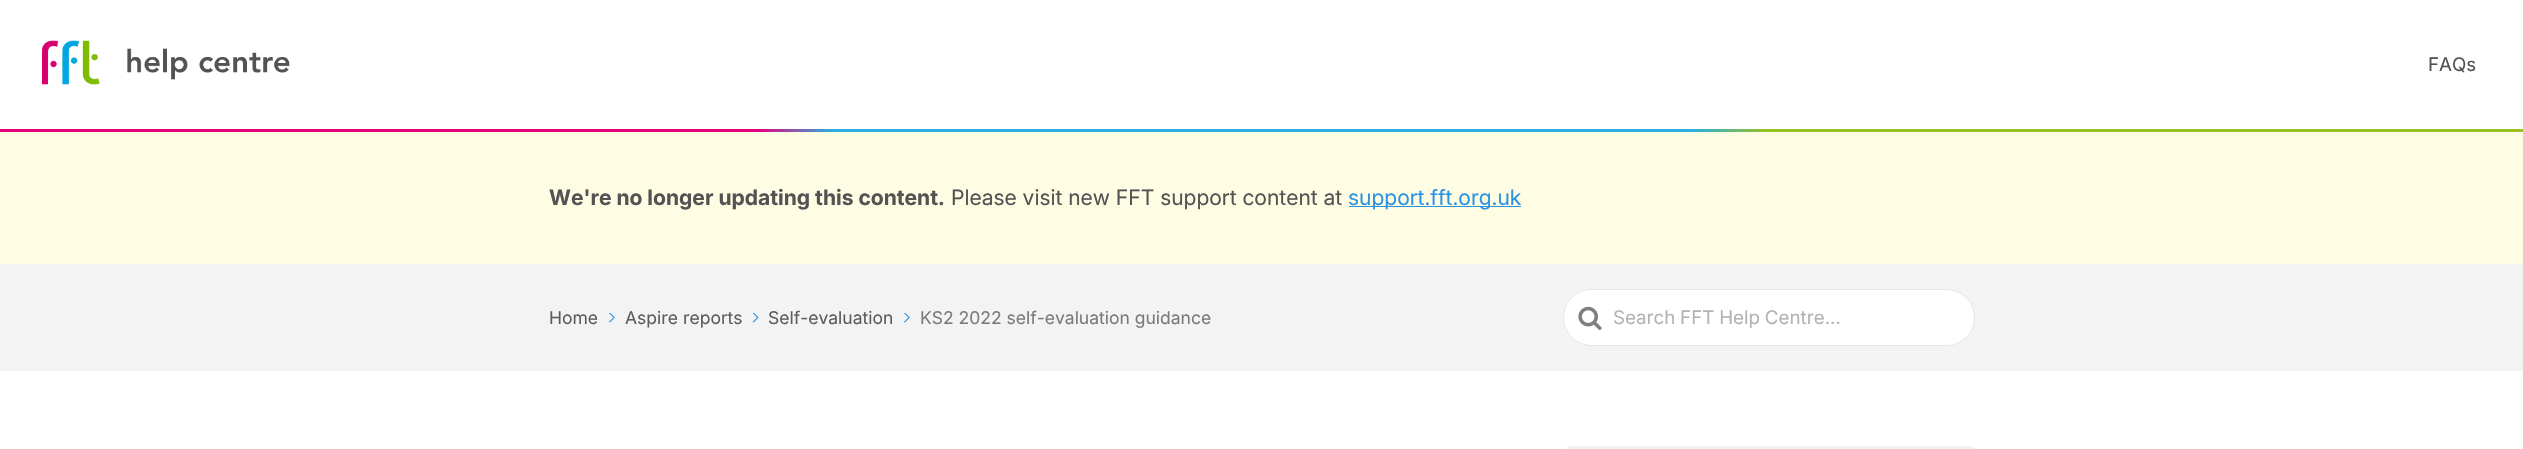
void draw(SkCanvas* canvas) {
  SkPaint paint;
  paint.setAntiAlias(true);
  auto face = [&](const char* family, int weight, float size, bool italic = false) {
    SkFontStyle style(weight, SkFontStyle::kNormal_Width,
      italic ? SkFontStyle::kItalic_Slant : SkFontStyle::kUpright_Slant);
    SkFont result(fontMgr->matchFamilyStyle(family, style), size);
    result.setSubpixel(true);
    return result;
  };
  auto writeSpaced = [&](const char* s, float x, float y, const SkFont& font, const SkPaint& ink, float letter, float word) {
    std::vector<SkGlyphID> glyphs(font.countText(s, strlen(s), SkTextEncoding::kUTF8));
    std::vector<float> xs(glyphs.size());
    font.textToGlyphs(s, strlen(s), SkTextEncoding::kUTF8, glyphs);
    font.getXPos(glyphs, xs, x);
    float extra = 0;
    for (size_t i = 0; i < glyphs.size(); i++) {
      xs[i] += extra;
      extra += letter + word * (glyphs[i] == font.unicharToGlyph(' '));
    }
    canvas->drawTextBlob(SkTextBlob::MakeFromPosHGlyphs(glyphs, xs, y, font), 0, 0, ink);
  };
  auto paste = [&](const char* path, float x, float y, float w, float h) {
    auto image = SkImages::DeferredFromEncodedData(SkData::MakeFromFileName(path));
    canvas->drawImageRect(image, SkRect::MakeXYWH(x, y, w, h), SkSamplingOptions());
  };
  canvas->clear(0xffffffff);
  paste("img/1.png", 42, 40, 248, 45);
  {
    const SkColor colors[] = {0xffe6007e, 0xffe6007e, 0xff2daee1, 0xff2daee1, 0xff96c11f, 0xff96c11f};
    const float stops[] = {0, 0.3f, 0.33f, 0.67f, 0.7f, 1};
    const SkPoint ends[] = {{0, 130}, {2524, 130}};
    paint.setShader(SkGradientShader::MakeLinear(ends, colors, stops, 6, SkTileMode::kClamp));
    paint.setAlpha(255);
  }
  canvas->drawRect(SkRect::MakeXYWH(0, 129, 2523, 3), paint);
  paint.setShader(nullptr);
  {
    const struct { float x, y, w, h; SkColor color; } items[] = {
      {0, 132, 2523, 132, 0xfffefde4},
      {1349, 206, 172, 1, 0xff2d93e1},
      {0, 264, 2523, 107, 0xfff3f3f3},
    };
    for (auto [x, y, w, h, color] : items) {
      paint.setColor(color);
      canvas->drawRect(SkRect::MakeXYWH(x, y, w, h), paint);
    }
  }
  paste("img/2.png", 609, 313, 6, 10);
  paste("img/3.png", 752, 313, 7, 10);
  paste("img/2.png", 904, 313, 6, 10);
  paint.setColor(0xffffffff);
  canvas->drawRoundRect(SkRect::MakeXYWH(1563, 289, 412, 57), 28.5f, 28.5f, paint);
  paint.setStroke(true);
  paint.setStrokeWidth(1);
  paint.setColor(0x80cccccc);
  canvas->drawRoundRect(SkRect::MakeXYWH(1563.5f, 289.5f, 411, 56), 28, 28, paint);
  paste("img/4.png", 1578, 306, 24, 24);
  paint.setStroke(false);
  paint.setColor(0xfff3f3f3);
  canvas->drawRoundRect(SkRect::MakeXYWH(1566, 446, 409, 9), 6, 6, paint);
  auto f0 = face("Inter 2", 400, 18.75f);
  paint.setColor(0xff535353);
  canvas->drawString("FAQs", 2428, 71, f0, paint);
  auto f1 = face("Inter", 700, 21.25f);
  canvas->drawString("We're no longer updating this content.", 549, 205, f1, paint);
  auto f2 = face("Inter", 400, 21.25f);
  canvas->drawString("Please visit new FFT support content at", 951, 205, f2, paint);
  paint.setColor(0xff2d93e1);
  canvas->drawString("support.fft.org.uk", 1348, 205, f2, paint);
  auto f3 = face("Inter 2", 400, 17.5f);
  paint.setColor(0xff5c5c5c);
  {
    const struct { const char* s; float x, y; } items[] = {
      {"Home", 549, 324},
      {"Aspire reports", 625, 324},
      {"Self-evaluation", 768, 324},
    };
    for (auto [s, x, y] : items) {
      canvas->drawString(s, x, y, f3, paint);
    }
  }
  paint.setColor(0xff7a7a7a);
  canvas->drawString("KS2 2022 self-evaluation guidance", 920, 324, f3, paint);
  paint.setColor(0xffb3b3b3);
  writeSpaced("Search FFT Help Centre...", 1613, 324, f0, paint, 0, -0.5f);
}
